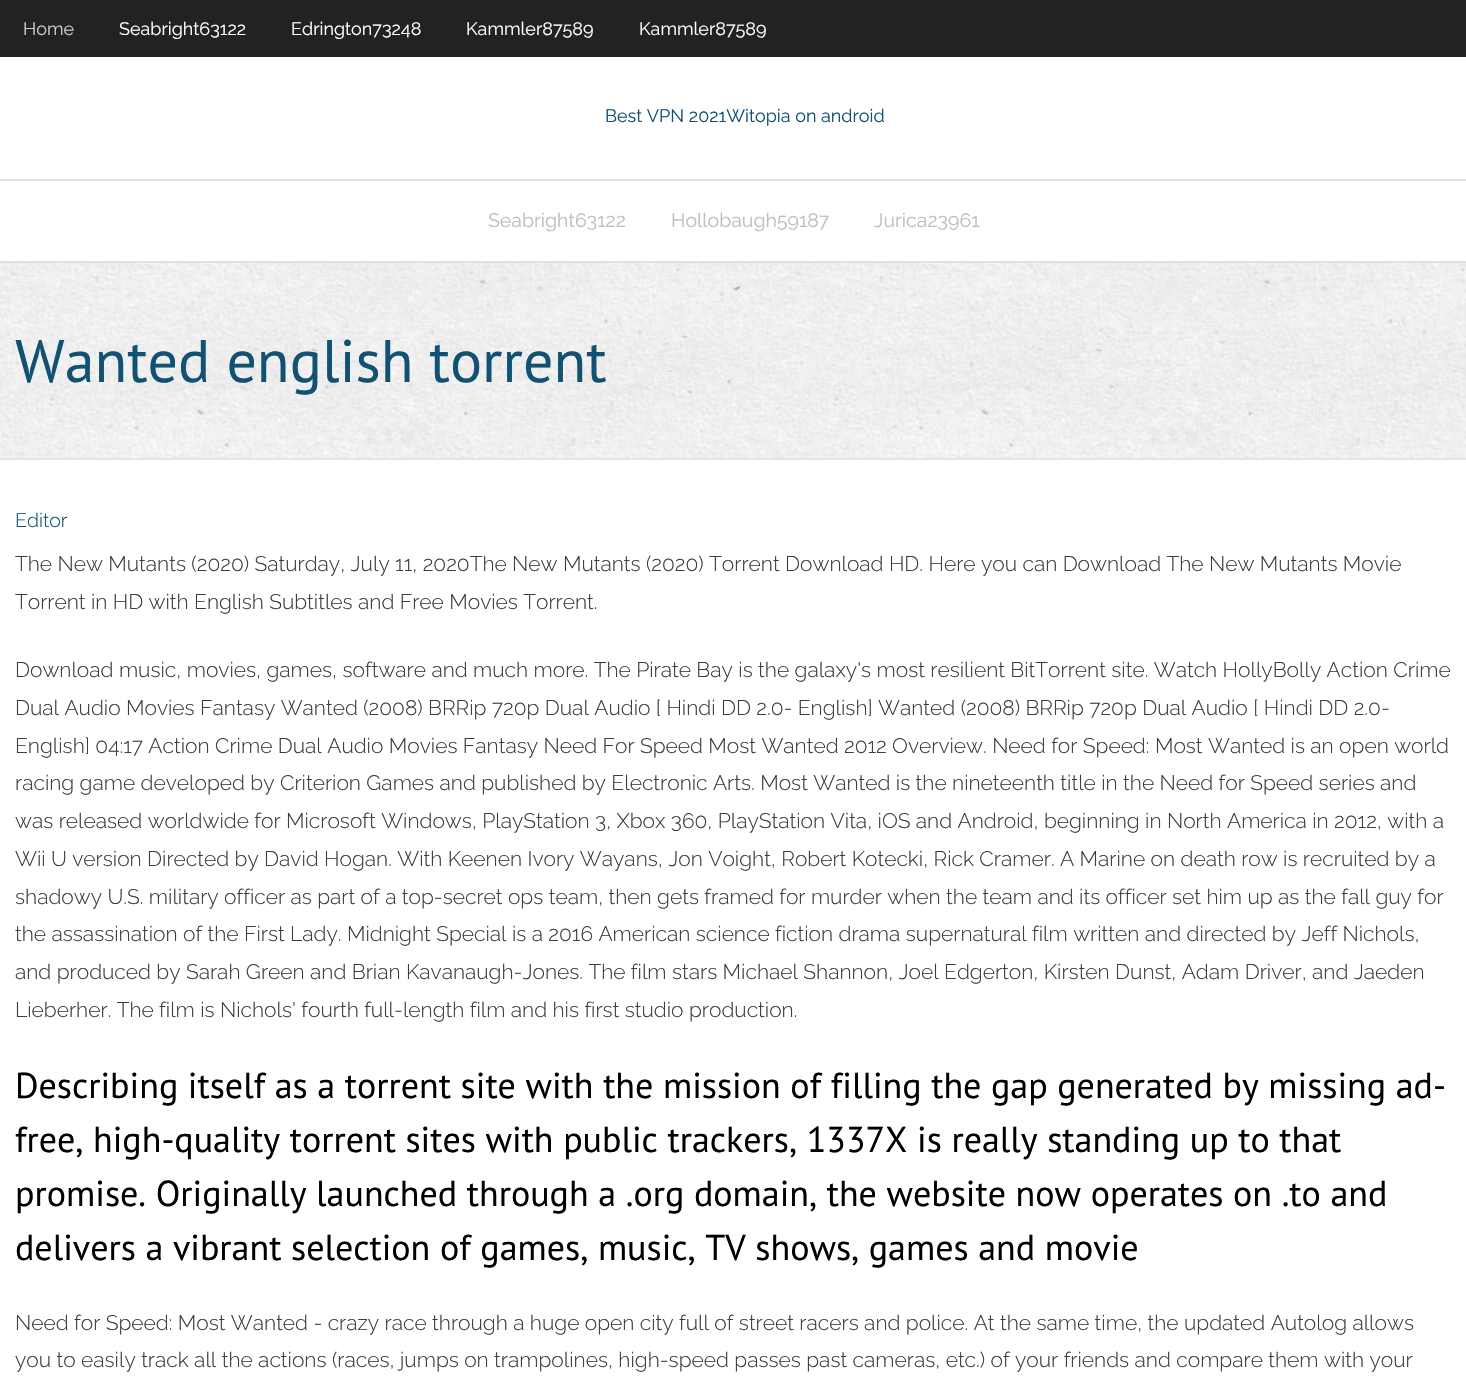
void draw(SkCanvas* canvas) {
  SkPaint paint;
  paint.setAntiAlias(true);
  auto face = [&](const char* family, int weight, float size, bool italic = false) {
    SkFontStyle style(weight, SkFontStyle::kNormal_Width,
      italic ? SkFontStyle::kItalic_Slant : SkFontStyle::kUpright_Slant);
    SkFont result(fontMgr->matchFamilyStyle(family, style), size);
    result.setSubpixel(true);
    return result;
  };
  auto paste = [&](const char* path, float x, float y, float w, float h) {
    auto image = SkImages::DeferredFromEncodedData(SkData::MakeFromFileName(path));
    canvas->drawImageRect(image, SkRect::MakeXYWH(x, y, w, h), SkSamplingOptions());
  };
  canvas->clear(0xffffffff);
  {
    const struct { float x, y, w, h; SkColor color; } items[] = {
      {0, 0, 1466, 57, 0xff222222},
      {0, 179, 1466, 2, 0xffe1e1e1},
      {0, 261, 1466, 2, 0xffe1e1e1},
    };
    for (auto [x, y, w, h, color] : items) {
      paint.setColor(color);
      canvas->drawRect(SkRect::MakeXYWH(x, y, w, h), paint);
    }
  }
  paste("img/1.png", 0, 263, 1466, 195);
  paint.setColor(0xffe5e5e5);
  canvas->drawRect(SkRect::MakeXYWH(0, 458, 1466, 2), paint);
  auto f0 = face("Raleway", 400, 18);
  paint.setColor(0xffcccccc);
  canvas->drawString("Home", 23, 35, f0, paint);
  paint.setColor(0xffffffff);
  {
    const struct { const char* s; float x, y; } items[] = {
      {"Seabright63122", 119, 35},
      {"Edrington73248", 291, 35},
      {"Kammler87589", 466, 35},
      {"Kammler87589", 639, 35},
    };
    for (auto [s, x, y] : items) {
      canvas->drawString(s, x, y, f0, paint);
    }
  }
  paint.setColor(0xff115172);
  canvas->drawString("Best VPN 2021Witopia on android", 605, 122, f0, paint);
  auto f1 = face("Raleway", 400, 19.5f);
  paint.setColor(0xffbebebe);
  {
    const struct { const char* s; float x, y; } items[] = {
      {"Seabright63122", 488, 227},
      {"Hollobaugh59187", 671, 227},
      {"Jurica23961", 874, 227},
    };
    for (auto [s, x, y] : items) {
      canvas->drawString(s, x, y, f1, paint);
    }
  }
  auto f2 = face("PT Sans", 400, 60);
  paint.setColor(0xff115172);
  canvas->drawString("Wanted english torrent", 15, 382, f2, paint);
  auto f3 = face("Raleway", 300, 19.5f);
  canvas->drawString("Editor", 15, 527, f3, paint);
  auto f4 = face("Raleway", 300, 21);
  paint.setColor(0xff3d3d3d);
  {
    const struct { const char* s; float x, y; } items[] = {
      {"The New Mutants (2020) Saturday, July 11, 2020The New Mutants (2020) Torrent Download HD. Here you can Download The New Mutants Movie", 15, 571},
      {"Torrent in HD with English Subtitles and Free Movies Torrent.", 15, 609},
      {"Download music, movies, games, software and much more. The Pirate Bay is the galaxy's most resilient BitTorrent site. Watch HollyBolly Action Crime", 15, 677},
      {"Dual Audio Movies Fantasy Wanted (2008) BRRip 720p Dual Audio [ Hindi DD 2.0- English] Wanted (2008) BRRip 720p Dual Audio [ Hindi DD 2.0-", 15, 715},
      {"English] 04:17 Action Crime Dual Audio Movies Fantasy Need For Speed Most Wanted 2012 Overview. Need for Speed: Most Wanted is an open world", 15, 753},
      {"racing game developed by Criterion Games and published by Electronic Arts. Most Wanted is the nineteenth title in the Need for Speed series and", 15, 790},
      {"was released worldwide for Microsoft Windows, PlayStation 3, Xbox 360, PlayStation Vita, iOS and Android, beginning in North America in 2012, with a", 15, 828},
      {"Wii U version Directed by David Hogan. With Keenen Ivory Wayans, Jon Voight, Robert Kotecki, Rick Cramer. A Marine on death row is recruited by a", 15, 866},
      {"shadowy U.S. military officer as part of a top-secret ops team, then gets framed for murder when the team and its officer set him up as the fall guy for", 15, 904},
      {"the assassination of the First Lady. Midnight Special is a 2016 American science fiction drama supernatural film written and directed by Jeff Nichols,", 15, 941},
      {"and produced by Sarah Green and Brian Kavanaugh-Jones. The film stars Michael Shannon, Joel Edgerton, Kirsten Dunst, Adam Driver, and Jaeden", 15, 979},
      {"Lieberher. The film is Nichols' fourth full-length film and his first studio production.", 15, 1017},
    };
    for (auto [s, x, y] : items) {
      canvas->drawString(s, x, y, f4, paint);
    }
  }
  auto f5 = face("PT Sans", 400, 36);
  paint.setColor(0xff000000);
  {
    const struct { const char* s; float x, y; } items[] = {
      {"Describing itself as a torrent site with the mission of filling the gap generated by missing ad-", 15, 1098},
      {"free, high-quality torrent sites with public trackers, 1337X is really standing up to that", 15, 1152},
      {"promise. Originally launched through a .org domain, the website now operates on .to and", 15, 1206},
      {"delivers a vibrant selection of games, music, TV shows, games and movie", 15, 1260},
    };
    for (auto [s, x, y] : items) {
      canvas->drawString(s, x, y, f5, paint);
    }
  }
  paint.setColor(0xff3d3d3d);
  canvas->drawString("Need for Speed: Most Wanted - crazy race through a huge open city full of street racers and police. At the same time, the updated Autolog allows", 15, 1330, f4, paint);
  canvas->drawString("you to easily track all the actions (races, jumps on trampolines, high-speed passes past cameras, etc.) of your friends and compare them with your", 15, 1367, f4, paint);
}
